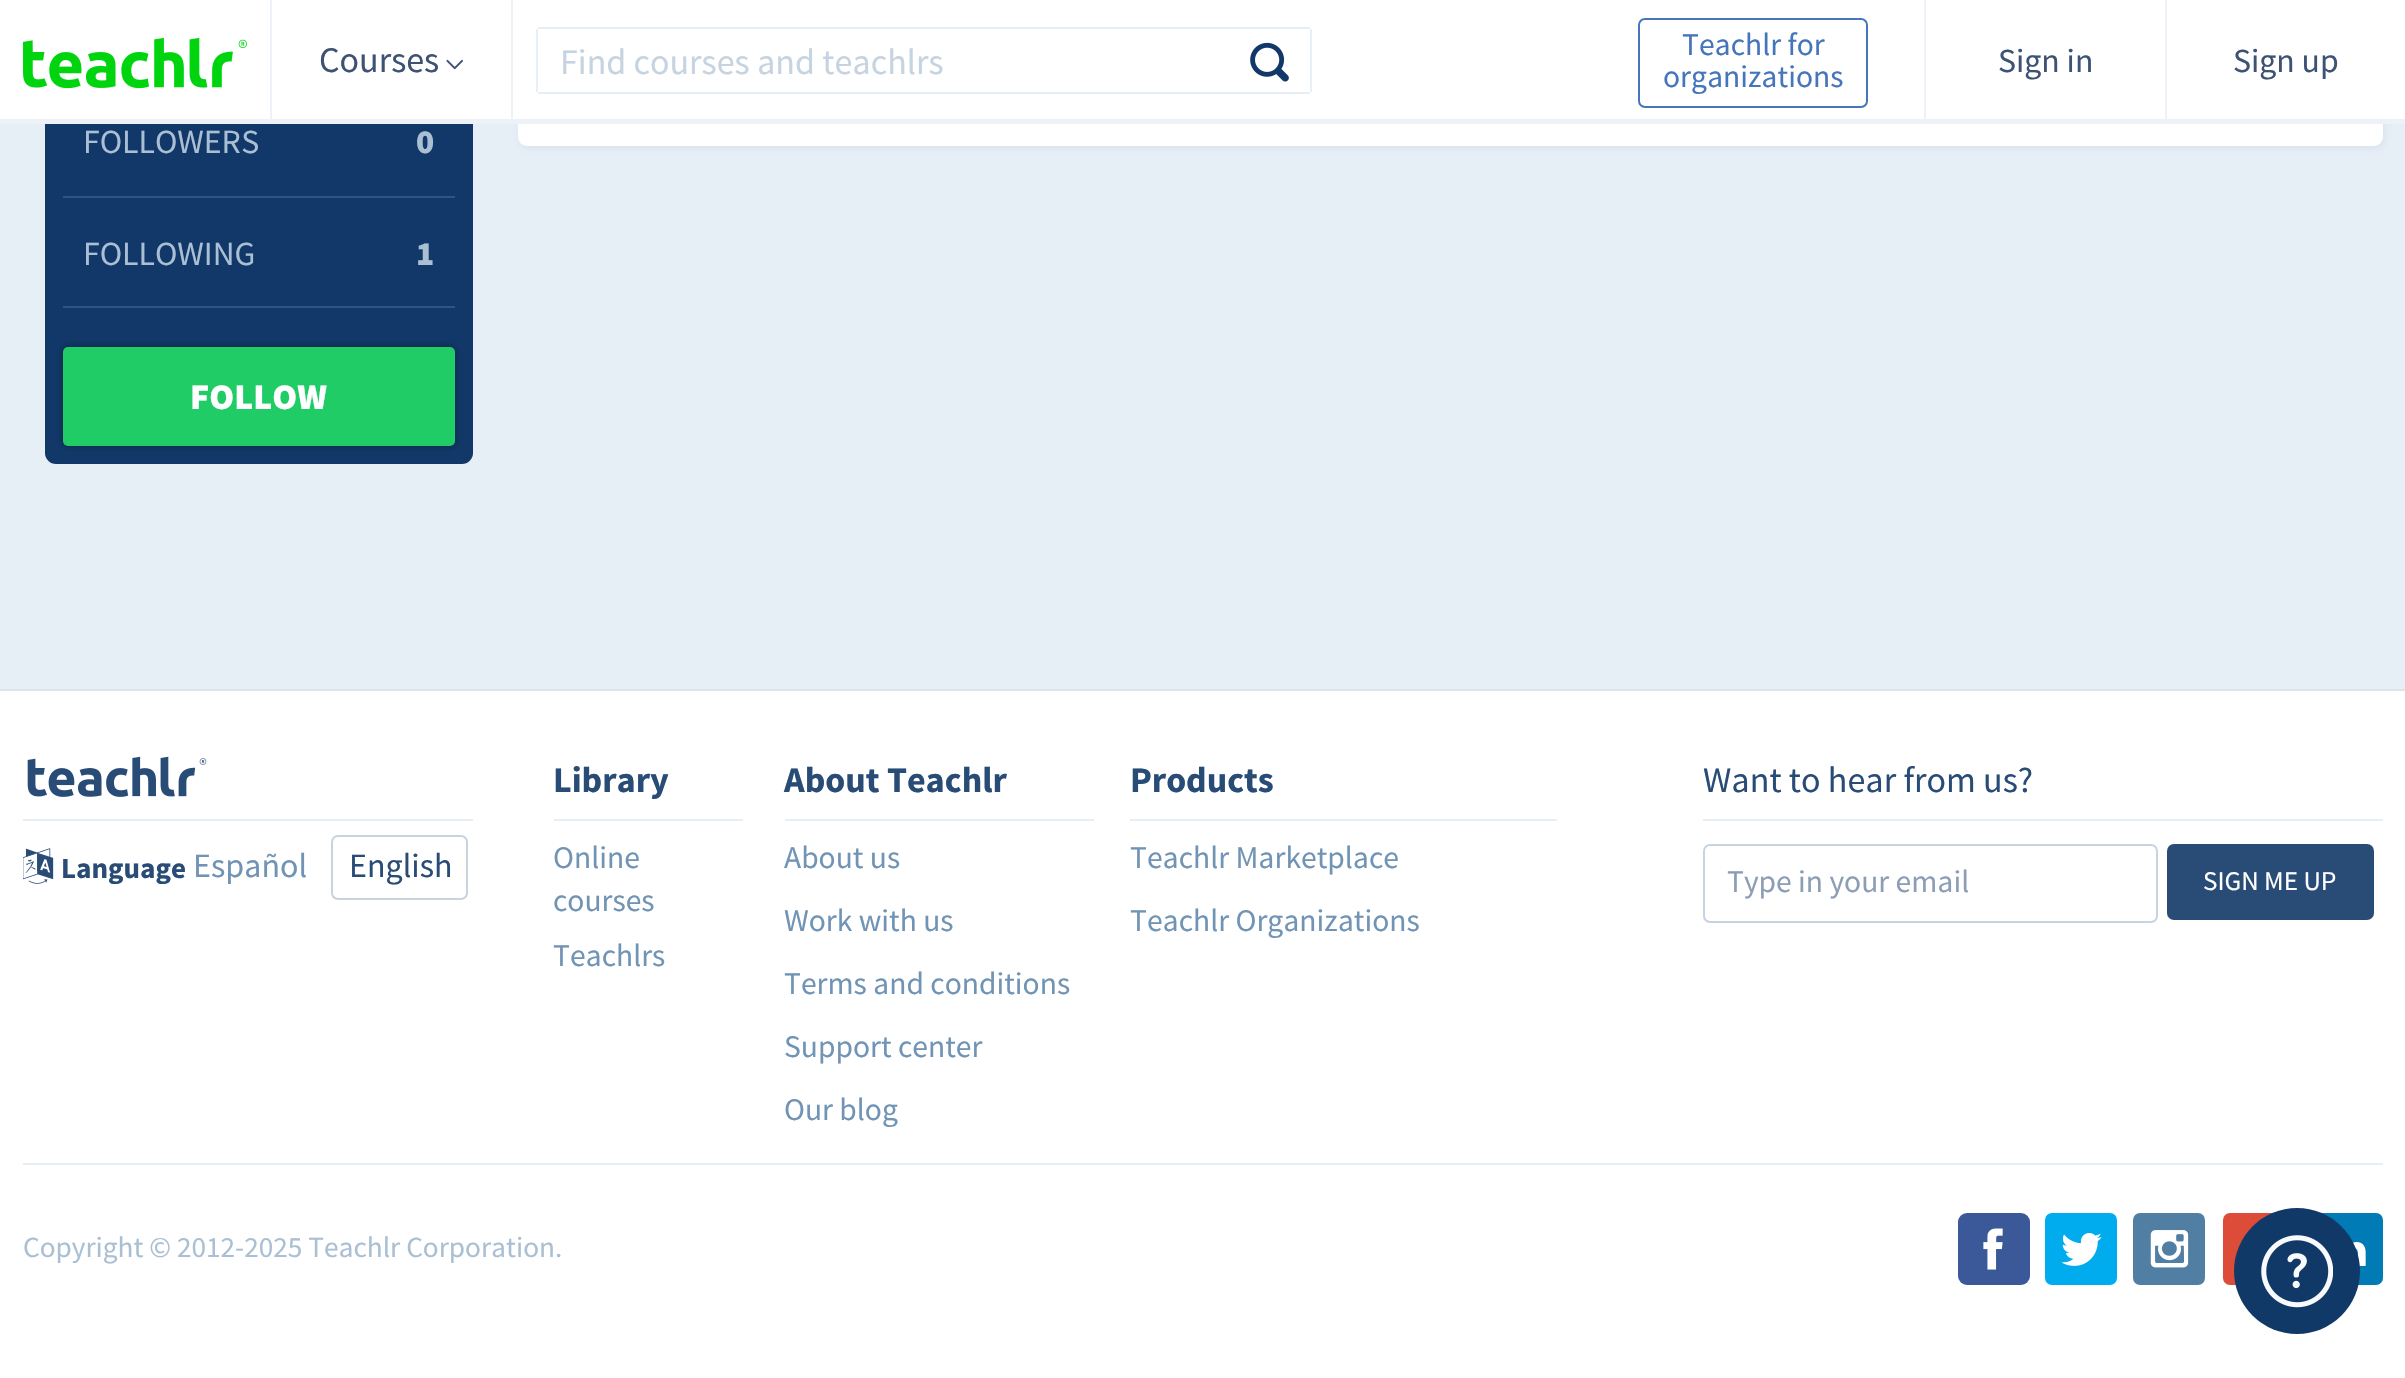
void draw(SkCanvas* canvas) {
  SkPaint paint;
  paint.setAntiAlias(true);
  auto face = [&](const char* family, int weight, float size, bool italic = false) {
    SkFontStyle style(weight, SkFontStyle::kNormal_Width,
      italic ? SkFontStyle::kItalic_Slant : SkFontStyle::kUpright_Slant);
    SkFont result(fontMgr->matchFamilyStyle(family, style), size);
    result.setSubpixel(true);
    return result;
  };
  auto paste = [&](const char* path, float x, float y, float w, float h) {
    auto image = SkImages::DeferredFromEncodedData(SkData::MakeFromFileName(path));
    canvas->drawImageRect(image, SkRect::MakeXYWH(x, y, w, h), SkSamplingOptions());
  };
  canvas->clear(0xffe6eef6);
  paint.setColor(0x33aabfd3);
  paint.setMaskFilter(SkMaskFilter::MakeBlur(kNormal_SkBlurStyle, 3.5f));
  canvas->drawRoundRect(SkRect::MakeXYWH(520, -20, 1865, 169), 9, 9, paint);
  paint.setMaskFilter(nullptr);
  paint.setColor(0xffffffff);
  canvas->drawRoundRect(SkRect::MakeXYWH(518, -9, 1865, 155), 9, 9, paint);
  paint.setColor(0xff113868);
  canvas->drawRoundRect(SkRect::MakeXYWH(45, -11, 428, 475), 11, 11, paint);
  paint.setColor(0xffffffff);
  canvas->drawRect(SkRect::MakeXYWH(0, 0, 2405, 119), paint);
  paint.setColor(0xffecf2f8);
  canvas->drawRect(SkRect::MakeXYWH(0, 119, 2405, 5), paint);
  paste("img/1.png", 23, 37, 224, 52);
  canvas->drawRect(SkRect::MakeXYWH(270, 0, 2, 124), paint);
  paste("img/2.png", 446, 59, 17, 11);
  {
    const struct { float x, y, w, h; SkColor color; } items[] = {
      {511, 0, 2, 124, 0xffecf2f8},
      {538, 27, 772, 2, 0xffe6eef6},
      {538, 92, 772, 2, 0xffe6eef6},
      {536, 29, 2, 63, 0xffe6eef6},
      {1310, 29, 2, 63, 0xffe6eef6},
    };
    for (auto [x, y, w, h, color] : items) {
      paint.setColor(color);
      canvas->drawRect(SkRect::MakeXYWH(x, y, w, h), paint);
    }
  }
  paste("img/3.png", 1250, 42, 39, 40);
  paint.setStroke(true);
  paint.setStrokeWidth(2);
  paint.setColor(0xff4576bb);
  canvas->drawRoundRect(SkRect::MakeXYWH(1639, 19, 228, 88), 6, 6, paint);
  paint.setStroke(false);
  {
    const struct { float x, y, w, h; SkColor color; } items[] = {
      {1924, 0, 2, 124, 0xffecf2f8},
      {2165, 0, 2, 124, 0xffecf2f8},
      {63, 196, 392, 2, 0xff2e547f},
      {63, 306, 392, 2, 0xff2e547f},
    };
    for (auto [x, y, w, h, color] : items) {
      paint.setColor(color);
      canvas->drawRect(SkRect::MakeXYWH(x, y, w, h), paint);
    }
  }
  paint.setColor(0x59000000);
  paint.setMaskFilter(SkMaskFilter::MakeBlur(kNormal_SkBlurStyle, 3.5f));
  canvas->drawRoundRect(SkRect::MakeXYWH(63, 347, 392, 99), 5, 5, paint);
  paint.setMaskFilter(nullptr);
  paint.setColor(0xff1fcc65);
  canvas->drawRoundRect(SkRect::MakeXYWH(63, 347, 392, 99), 5, 5, paint);
  {
    const struct { float x, y, w, h; SkColor color; } items[] = {
      {0, 691, 2405, 687, 0xffffffff},
      {0, 689, 2405, 2, 0xffdce5ed},
      {23, 819, 450, 2, 0xffe6eef6},
    };
    for (auto [x, y, w, h, color] : items) {
      paint.setColor(color);
      canvas->drawRect(SkRect::MakeXYWH(x, y, w, h), paint);
    }
  }
  paste("img/4.png", 27, 756, 180, 41);
  paste("img/5.png", 23, 848, 31, 36);
  paint.setStroke(true);
  paint.setColor(0xffc6d4e1);
  canvas->drawRoundRect(SkRect::MakeXYWH(332, 836, 135, 63), 6, 6, paint);
  paint.setStroke(false);
  {
    const struct { float x, y, w, h; SkColor color; } items[] = {
      {554, 819, 189, 2, 0xffe6eef6},
      {785, 819, 309, 2, 0xffe6eef6},
      {1130, 819, 427, 2, 0xffe6eef6},
      {1703, 819, 680, 2, 0xffe6eef6},
    };
    for (auto [x, y, w, h, color] : items) {
      paint.setColor(color);
      canvas->drawRect(SkRect::MakeXYWH(x, y, w, h), paint);
    }
  }
  paint.setStroke(true);
  paint.setColor(0xffc6d4e1);
  canvas->drawRoundRect(SkRect::MakeXYWH(1704, 845, 453, 77), 6, 6, paint);
  paint.setStroke(false);
  paint.setColor(0xff294c77);
  canvas->drawRoundRect(SkRect::MakeXYWH(2167, 844, 207, 76), 7, 7, paint);
  paint.setColor(0xffe6eef6);
  canvas->drawRect(SkRect::MakeXYWH(23, 1163, 2360, 2), paint);
  paint.setColor(0xff3b5998);
  canvas->drawRoundRect(SkRect::MakeXYWH(1958, 1213, 72, 72), 9, 9, paint);
  paste("img/6.png", 1983, 1228, 20, 42);
  paint.setColor(0xff00aced);
  canvas->drawRoundRect(SkRect::MakeXYWH(2045, 1213, 72, 72), 7, 7, paint);
  paste("img/7.png", 2061, 1233, 41, 33);
  paint.setColor(0xff517fa4);
  canvas->drawRoundRect(SkRect::MakeXYWH(2133, 1213, 72, 72), 7, 7, paint);
  paste("img/8.png", 2150, 1230, 39, 38);
  paint.setColor(0xffdd4b39);
  canvas->drawRoundRect(SkRect::MakeXYWH(2223, 1213, 72, 72), 7, 7, paint);
  paste("img/9.png", 2245, 1235, 1, 1);
  paint.setColor(0xff007bb6);
  canvas->drawRoundRect(SkRect::MakeXYWH(2311, 1213, 72, 72), 7, 7, paint);
  paste("img/10.png", 2353, 1242, 13, 24);
  paint.setColor(0xff113968);
  canvas->drawCircle(2297, 1271, 63, paint);
  paste("img/11.png", 2261, 1235, 72, 73);
  auto f0 = face("Source Sans Pro", 400, 36);
  paint.setColor(0xff3e5374);
  canvas->drawString("Courses", 319, 72, f0, paint);
  paint.setColor(0xffc6d4e1);
  canvas->drawString("Find courses and teachlrs", 560, 74, f0, paint);
  auto f1 = face("Source Sans Pro", 400, 31.5f);
  paint.setColor(0xff4576bb);
  canvas->drawString("Teachlr for", 1682, 55, f1, paint);
  canvas->drawString("organizations", 1663, 87, f1, paint);
  auto f2 = face("Source Sans Pro", 400, 33.75f);
  paint.setColor(0xff3e5374);
  canvas->drawString("Sign in", 1998, 72, f2, paint);
  canvas->drawString("Sign up", 2233, 72, f2, paint);
  paint.setColor(0xffaabfd3);
  canvas->drawString("FOLLOWERS", 83, 153, f2, paint);
  auto f3 = face("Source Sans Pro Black", 900, 33.75f);
  canvas->drawString("0", 416, 153, f3, paint);
  canvas->drawString("FOLLOWING", 83, 265, f2, paint);
  canvas->drawString("1", 416, 265, f3, paint);
  auto f4 = face("Source Sans Pro Black", 900, 36);
  paint.setColor(0xffffffff);
  canvas->drawString("FOLLOW", 190, 409, f4, paint);
  auto f5 = face("Source Sans Pro", 700, 29);
  paint.setColor(0xff294c77);
  canvas->drawString("Language", 61, 878, f5, paint);
  auto f6 = face("Source Sans Pro", 400, 34);
  paint.setColor(0xff7194b5);
  canvas->drawString("Español", 193, 877, f6, paint);
  paint.setColor(0xff294c77);
  canvas->drawString("English", 349, 877, f6, paint);
  auto f7 = face("Source Sans Pro", 700, 36);
  canvas->drawString("Library", 553, 792, f7, paint);
  paint.setColor(0xff7194b5);
  {
    const struct { const char* s; float x, y; } items[] = {
      {"Online", 553, 868},
      {"courses", 553, 911},
      {"Teachlrs", 553, 966},
    };
    for (auto [s, x, y] : items) {
      canvas->drawString(s, x, y, f1, paint);
    }
  }
  paint.setColor(0xff294c77);
  canvas->drawString("About Teachlr", 784, 792, f7, paint);
  paint.setColor(0xff7194b5);
  {
    const struct { const char* s; float x, y; } items[] = {
      {"About us", 784, 868},
      {"Work with us", 784, 931},
      {"Terms and conditions", 784, 994},
      {"Support center", 784, 1057},
      {"Our blog", 784, 1120},
    };
    for (auto [s, x, y] : items) {
      canvas->drawString(s, x, y, f1, paint);
    }
  }
  paint.setColor(0xff294c77);
  canvas->drawString("Products", 1130, 792, f7, paint);
  paint.setColor(0xff7194b5);
  canvas->drawString("Teachlr Marketplace", 1130, 868, f1, paint);
  canvas->drawString("Teachlr Organizations", 1130, 931, f1, paint);
  paint.setColor(0xff294c77);
  canvas->drawString("Want to hear from us?", 1703, 792, f0, paint);
  paint.setColor(0xff8c9eb6);
  canvas->drawString("Type in your email", 1727, 892, f1, paint);
  auto f8 = face("Source Sans Pro", 400, 27);
  paint.setColor(0xffffffff);
  canvas->drawString("SIGN ME UP", 2203, 890, f8, paint);
  auto f9 = face("Source Sans Pro", 400, 29.25f);
  paint.setColor(0xffaabfd3);
  canvas->drawString("Copyright © 2012-2025 Teachlr Corporation.", 23, 1257, f9, paint);
}
